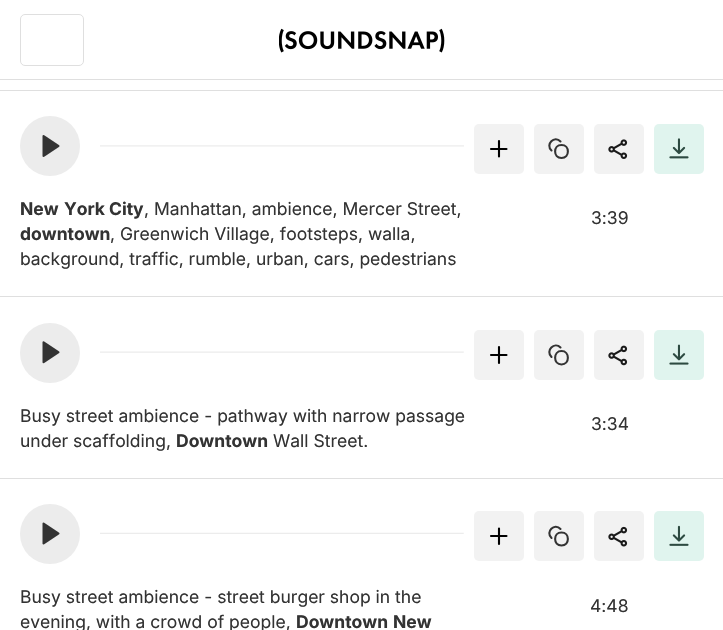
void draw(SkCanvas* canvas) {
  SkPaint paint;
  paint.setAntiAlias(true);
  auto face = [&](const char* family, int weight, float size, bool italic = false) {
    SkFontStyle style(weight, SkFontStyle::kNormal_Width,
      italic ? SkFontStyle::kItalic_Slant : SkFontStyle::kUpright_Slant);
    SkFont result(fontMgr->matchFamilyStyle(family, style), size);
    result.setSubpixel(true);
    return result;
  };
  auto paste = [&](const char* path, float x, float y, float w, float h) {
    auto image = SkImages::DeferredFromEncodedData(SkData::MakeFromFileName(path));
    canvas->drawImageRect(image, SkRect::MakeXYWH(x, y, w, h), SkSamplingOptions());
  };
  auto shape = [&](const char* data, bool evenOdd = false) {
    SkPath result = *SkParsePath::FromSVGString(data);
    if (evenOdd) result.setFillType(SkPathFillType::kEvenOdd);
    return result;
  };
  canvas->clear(0xffffffff);
  paint.setColor(0xffdfdfdf);
  canvas->drawRect(SkRect::MakeXYWH(0, 79, 723, 1), paint);
  paint.setStroke(true);
  paint.setStrokeWidth(1);
  canvas->drawRoundRect(SkRect::MakeXYWH(20.5f, 14.5f, 63, 51), 4.5f, 4.5f, paint);
  paste("img/1.png", 279, 28, 166, 25);
  paint.setStroke(false);
  canvas->drawRect(SkRect::MakeXYWH(0, 90, 723, 1), paint);
  canvas->drawRect(SkRect::MakeXYWH(0, 296, 723, 1), paint);
  paint.setColor(0xffececec);
  canvas->drawCircle(50, 146, 30, paint);
  paste("img/2.png", 42, 135, 18, 22);
  paste("img/3.png", 100, 145, 364, 2);
  paint.setColor(0xfff2f2f2);
  canvas->drawRoundRect(SkRect::MakeXYWH(474, 124, 50, 50), 5, 5, paint);
  paint.setStroke(true);
  paint.setStrokeWidth(2.1f);
  paint.setStrokeCap(SkPaint::kRound_Cap);
  paint.setColor(0xff000000);
  canvas->drawPath(shape("M499 141V156.5M506.5 149H491"), paint);
  paint.setStroke(false);
  paint.setColor(0xfff2f2f2);
  canvas->drawRoundRect(SkRect::MakeXYWH(534, 124, 50, 50), 5, 5, paint);
  paint.setStroke(true);
  paint.setColor(0xff333333);
  canvas->drawPath(shape("M560.5 141.5C554.5 135 545 144.5 551.5 150.5M561.5 158C570 158 570 145 561.5 145C553 145 553 158 561.5 158Z"), paint);
  paint.setStroke(false);
  paint.setColor(0xfff2f2f2);
  canvas->drawRoundRect(SkRect::MakeXYWH(594, 124, 50, 50), 5, 5, paint);
  paste("img/4.png", 608, 139, 20, 20);
  paint.setColor(0xffe0f4ee);
  canvas->drawRoundRect(SkRect::MakeXYWH(654, 124, 50, 50), 5, 5, paint);
  paste("img/5.png", 669, 138, 20, 21);
  paint.setColor(0xffdfdfdf);
  canvas->drawRect(SkRect::MakeXYWH(0, 478, 723, 1), paint);
  paint.setColor(0xffececec);
  canvas->drawCircle(50, 353, 30, paint);
  paste("img/6.png", 42, 341, 18, 23);
  paste("img/7.png", 100, 351, 364, 2);
  paint.setColor(0xfff2f2f2);
  canvas->drawRoundRect(SkRect::MakeXYWH(474, 330, 50, 50), 5, 5, paint);
  paint.setStroke(true);
  paint.setColor(0xff000000);
  canvas->drawPath(shape("M499 347V363M506.5 355H491"), paint);
  paint.setStroke(false);
  paint.setColor(0xfff2f2f2);
  canvas->drawRoundRect(SkRect::MakeXYWH(534, 330, 50, 50), 5, 5, paint);
  paint.setStroke(true);
  paint.setColor(0xff333333);
  canvas->drawPath(shape("M560.5 347.5C554.5 341.5 545 350.5 551.5 357M561.5 364.5C570 364.5 570 351 561.5 351C553 351 553 364.5 561.5 364.5Z"), paint);
  paint.setStroke(false);
  paint.setColor(0xfff2f2f2);
  canvas->drawRoundRect(SkRect::MakeXYWH(594, 330, 50, 50), 5, 5, paint);
  paste("img/8.png", 608, 345, 20, 21);
  paint.setColor(0xffe0f4ee);
  canvas->drawRoundRect(SkRect::MakeXYWH(654, 330, 50, 50), 5, 5, paint);
  paste("img/9.png", 669, 344, 20, 21);
  paint.setColor(0xffececec);
  canvas->drawCircle(50, 534, 30, paint);
  paste("img/10.png", 42, 522, 18, 23);
  paste("img/11.png", 100, 532, 364, 2);
  paint.setColor(0xfff2f2f2);
  canvas->drawRoundRect(SkRect::MakeXYWH(474, 511, 50, 50), 5, 5, paint);
  paint.setStroke(true);
  paint.setColor(0xff000000);
  canvas->drawPath(shape("M499 528.5V544M506.5 536H491"), paint);
  paint.setStroke(false);
  paint.setColor(0xfff2f2f2);
  canvas->drawRoundRect(SkRect::MakeXYWH(534, 511, 50, 50), 5, 5, paint);
  paint.setStroke(true);
  paint.setColor(0xff333333);
  canvas->drawPath(shape("M560.5 529C554.5 522.5 545 532 551.5 538M561.5 545.5C570 545.5 570 532.5 561.5 532.5C553 532.5 553 545.5 561.5 545.5Z"), paint);
  paint.setStroke(false);
  paint.setColor(0xfff2f2f2);
  canvas->drawRoundRect(SkRect::MakeXYWH(594, 511, 50, 50), 5, 5, paint);
  paste("img/12.png", 608, 526, 20, 21);
  paint.setColor(0xffe0f4ee);
  canvas->drawRoundRect(SkRect::MakeXYWH(654, 511, 50, 50), 5, 5, paint);
  paste("img/13.png", 669, 525, 20, 21);
  auto f0 = face("Inter", 700, 17.5f);
  paint.setColor(0xff333333);
  {
    const struct { const char* s; float x, y; } items[] = {
      {"New", 20, 215},
      {"York", 64, 215},
      {"City", 109, 215},
    };
    for (auto [s, x, y] : items) {
      canvas->drawString(s, x, y, f0, paint);
    }
  }
  auto f1 = face("Inter", 400, 17.5f);
  canvas->drawString(", Manhattan, ambience, Mercer Street,", 144, 215, f1, paint);
  canvas->drawString("downtown", 20, 240, f0, paint);
  {
    const struct { const char* s; float x, y; } items[] = {
      {", Greenwich Village, footsteps, walla,", 110, 240},
      {"background, traffic, rumble, urban, cars, pedestrians", 20, 265},
      {"3:39", 591, 224},
      {"Busy street ambience - pathway with narrow passage", 20, 422},
      {"under scaffolding,", 20, 447},
    };
    for (auto [s, x, y] : items) {
      canvas->drawString(s, x, y, f1, paint);
    }
  }
  canvas->drawString("Downtown", 176, 447, f0, paint);
  {
    const struct { const char* s; float x, y; } items[] = {
      {"Wall Street.", 273, 447},
      {"3:34", 591, 430},
      {"Busy street ambience - street burger shop in the", 20, 603},
      {"evening, with a crowd of people,", 20, 628},
    };
    for (auto [s, x, y] : items) {
      canvas->drawString(s, x, y, f1, paint);
    }
  }
  canvas->drawString("Downtown", 296, 628, f0, paint);
  canvas->drawString("New", 393, 628, f0, paint);
  canvas->drawString("4:48", 590, 612, f1, paint);
}
